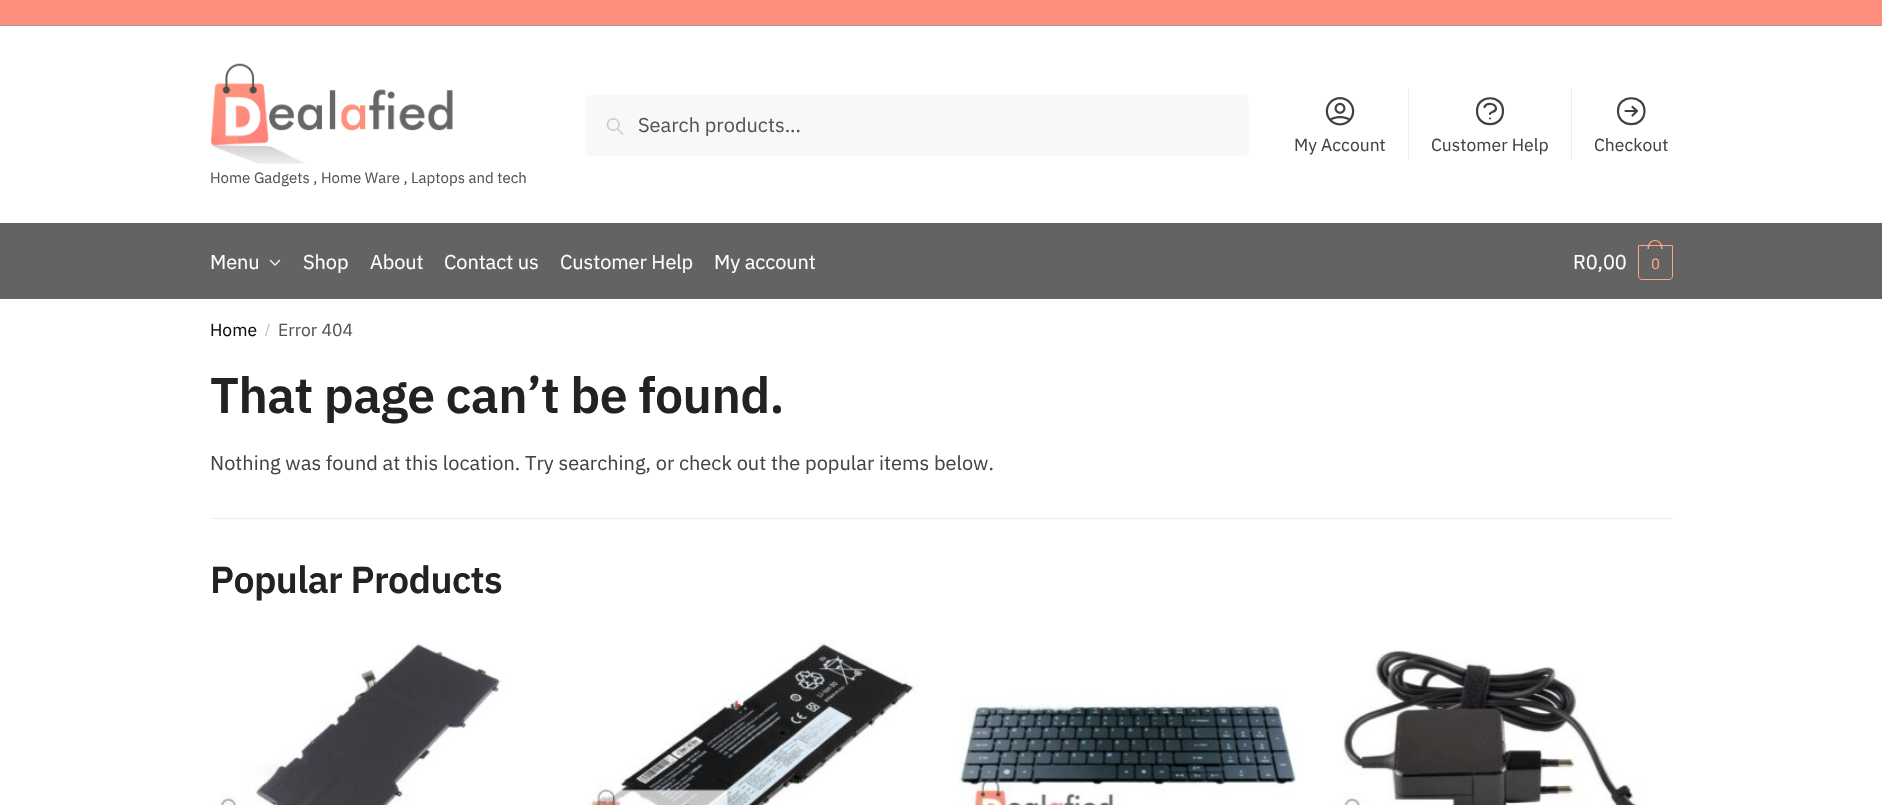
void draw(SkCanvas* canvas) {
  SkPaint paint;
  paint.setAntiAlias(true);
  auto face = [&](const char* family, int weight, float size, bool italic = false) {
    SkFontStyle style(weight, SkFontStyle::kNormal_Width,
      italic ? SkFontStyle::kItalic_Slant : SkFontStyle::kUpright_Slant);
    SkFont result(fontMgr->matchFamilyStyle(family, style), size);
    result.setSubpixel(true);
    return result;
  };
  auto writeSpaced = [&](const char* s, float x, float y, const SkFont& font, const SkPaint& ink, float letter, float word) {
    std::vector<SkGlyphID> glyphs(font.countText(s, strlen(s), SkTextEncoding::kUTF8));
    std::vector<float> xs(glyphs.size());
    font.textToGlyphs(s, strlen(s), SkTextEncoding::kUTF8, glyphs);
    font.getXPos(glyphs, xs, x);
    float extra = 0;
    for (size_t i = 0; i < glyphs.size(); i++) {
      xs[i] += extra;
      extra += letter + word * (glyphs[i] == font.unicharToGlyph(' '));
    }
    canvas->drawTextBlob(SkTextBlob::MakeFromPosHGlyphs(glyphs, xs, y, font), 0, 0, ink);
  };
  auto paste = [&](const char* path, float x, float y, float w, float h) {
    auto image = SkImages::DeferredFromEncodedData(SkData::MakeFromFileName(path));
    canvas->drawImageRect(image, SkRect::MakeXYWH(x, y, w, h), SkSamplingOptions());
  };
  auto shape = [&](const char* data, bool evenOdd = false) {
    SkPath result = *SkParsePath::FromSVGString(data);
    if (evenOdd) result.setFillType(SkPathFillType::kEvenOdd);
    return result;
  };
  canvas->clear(0xffffffff);
  paint.setColor(0xffff8e7c);
  canvas->drawRect(SkRect::MakeXYWH(0, 0, 1882, 25), paint);
  paint.setColor(0xff9e9e9e);
  canvas->drawRect(SkRect::MakeXYWH(0, 25, 1882, 1), paint);
  paint.setColor(0x0d000000);
  paint.setMaskFilter(SkMaskFilter::MakeBlur(kNormal_SkBlurStyle, 1));
  canvas->drawRoundRect(SkRect::MakeXYWH(586, 96, 662, 59), 5, 5, paint);
  paint.setMaskFilter(nullptr);
  paint.setColor(0xfff8f8f8);
  canvas->drawRoundRect(SkRect::MakeXYWH(586, 95, 662, 59), 5, 5, paint);
  paint.setStroke(true);
  paint.setStrokeWidth(1.7f);
  paint.setStrokeCap(SkPaint::kRound_Cap);
  paint.setStrokeJoin(SkPaint::kRound_Join);
  paint.setColor(0xffcccccc);
  canvas->drawPath(shape("M622.5 134L617.5 129M619 124.5C619 132 607.5 132 607.5 124.5C607.5 117 619 117 619 124.5Z"), paint);
  paste("img/1.png", 1325, 97, 30, 29);
  paint.setStroke(false);
  paint.setColor(0xffeeeeee);
  canvas->drawRect(SkRect::MakeXYWH(1408, 88, 1, 72), paint);
  paint.setStroke(true);
  paint.setStrokeWidth(2.2f);
  paint.setColor(0xff404040);
  canvas->drawPath(shape("M1484.5 107C1486.5 102.5 1495.5 103 1496 108.5C1496 112.5 1490 111.5 1490 114M1490 118.5H1490M1503 111C1503 128.5 1477 128.5 1477 111C1477 94 1503 94 1503 111Z"), paint);
  paint.setStroke(false);
  paint.setColor(0xffeeeeee);
  canvas->drawRect(SkRect::MakeXYWH(1571, 88, 1, 72), paint);
  paint.setStroke(true);
  paint.setColor(0xff404040);
  canvas->drawPath(shape("M1632.5 107L1637 111M1637 111L1632.5 115.5M1637 111H1625.5M1644.5 111C1644.5 128.5 1618 128.5 1618 111C1618 94 1644.5 94 1644.5 111Z"), paint);
  paste("img/2.png", 210, 63, 243, 101);
  paint.setStroke(false);
  paint.setColor(0xff636363);
  canvas->drawRect(SkRect::MakeXYWH(0, 223, 1882, 76), paint);
  paint.setStroke(true);
  paint.setStrokeWidth(1.2f);
  paint.setColor(0xffffffff);
  canvas->drawPath(shape("M279.5 260.5L275 265L270.5 260.5"), paint);
  paint.setStrokeWidth(1);
  paint.setStrokeCap(SkPaint::kButt_Cap);
  paint.setStrokeJoin(SkPaint::kMiter_Join);
  paint.setColor(0xffffa87b);
  canvas->drawPath(shape("M1638.5 245.5H1672.5V276C1672.5 278 1671 279.5 1669 279.5H1642C1640 279.5 1638.5 278 1638.5 276Z"), paint);
  paint.setStroke(false);
  canvas->drawPath(shape("M1655 240C1660 240 1662.5 244 1662.5 249H1647.5C1647.5 244 1650 240 1655 240ZM1655 241C1659.5 241 1661 245 1661 249H1649C1649 245 1650.5 241 1655 241Z", true), paint);
  paint.setColor(0xffeeeeee);
  canvas->drawRect(SkRect::MakeXYWH(210, 518, 1463, 1), paint);
  paste("img/3.png", 210, 640, 297, 165);
  paste("img/4.png", 585, 640, 332, 165);
  paste("img/5.png", 959, 695, 338, 110);
  paste("img/6.png", 1334, 650, 307, 155);
  auto f0 = face("IBM Plex Sans", 400, 20);
  paint.setColor(0xff555555);
  canvas->drawString("Search products...", 638, 132, f0, paint);
  auto f1 = face("IBM Plex Sans", 400, 17.5f);
  paint.setColor(0xff444444);
  {
    const struct { const char* s; float x, y; } items[] = {
      {"My Account", 1294, 151},
      {"Customer Help", 1431, 151},
      {"Checkout", 1594, 151},
    };
    for (auto [s, x, y] : items) {
      canvas->drawString(s, x, y, f1, paint);
    }
  }
  auto f2 = face("IBM Plex Sans", 400, 15);
  paint.setColor(0xff555555);
  canvas->drawString("Home Gadgets , Home Ware , Laptops and tech", 210, 183, f2, paint);
  paint.setColor(0xffffffff);
  {
    const struct { const char* s; float x, y; } items[] = {
      {"Menu", 210, 269},
      {"Shop", 303, 269},
      {"About", 370, 269},
      {"Contact us", 444, 269},
      {"Customer Help", 560, 269},
      {"My account", 714, 269},
      {"R0,00", 1573, 269},
    };
    for (auto [s, x, y] : items) {
      writeSpaced(s, x, y, f0, paint, -0.1f, 0);
    }
  }
  paint.setColor(0xffffa87b);
  writeSpaced("0", 1651, 269, f2, paint, -1, 0);
  paint.setColor(0xff111111);
  canvas->drawString("Home", 210, 336, f1, paint);
  auto f3 = face("IBM Plex Sans", 400, 14);
  paint.setColor(0xffbbbbbb);
  canvas->drawString("/", 265, 334, f3, paint);
  paint.setColor(0xff555555);
  canvas->drawString("Error 404", 278, 336, f1, paint);
  auto f4 = face("IBM Plex Sans", 600, 50);
  paint.setColor(0xff222222);
  writeSpaced("That page can’t be found.", 210, 413, f4, paint, -0.6f, 0);
  paint.setColor(0xff444444);
  canvas->drawString("Nothing was found at this location. Try searching, or check out the popular items below.", 210, 470, f0, paint);
  auto f5 = face("IBM Plex Sans", 600, 37.5f);
  paint.setColor(0xff222222);
  writeSpaced("Popular Products", 210, 593, f5, paint, -0.6f, 0);
}
